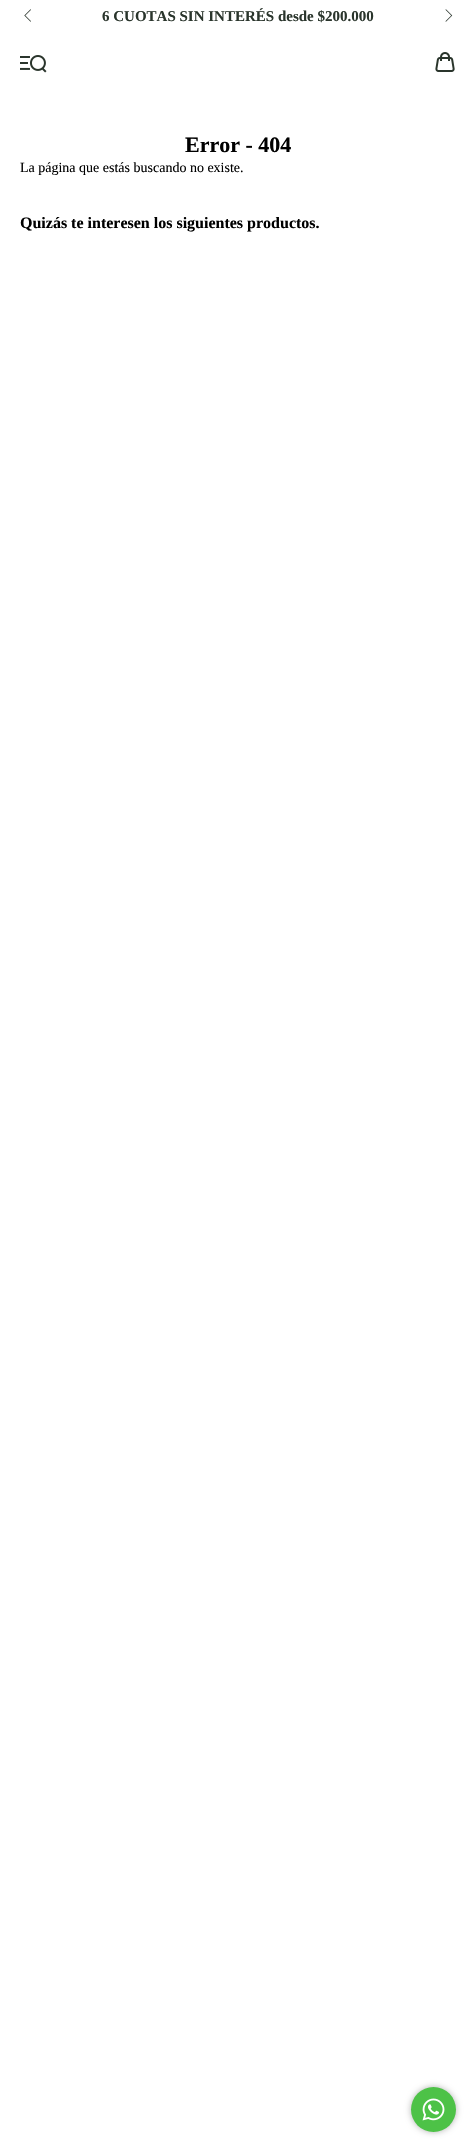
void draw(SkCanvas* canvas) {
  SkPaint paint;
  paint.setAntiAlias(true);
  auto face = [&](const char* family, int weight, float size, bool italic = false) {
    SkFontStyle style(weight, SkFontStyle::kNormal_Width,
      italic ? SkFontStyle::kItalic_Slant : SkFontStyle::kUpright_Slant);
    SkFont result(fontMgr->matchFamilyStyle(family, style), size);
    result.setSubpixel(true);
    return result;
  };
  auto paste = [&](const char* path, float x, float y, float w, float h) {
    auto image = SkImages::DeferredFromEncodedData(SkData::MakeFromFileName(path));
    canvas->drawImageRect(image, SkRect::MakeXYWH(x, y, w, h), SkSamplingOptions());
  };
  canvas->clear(0xffffffff);
  paste("img/1.png", 24, 9, 7, 13);
  paste("img/2.png", 445, 9, 8, 13);
  paste("img/3.png", 20, 55, 27, 18);
  paste("img/4.png", 435, 52, 20, 20);
  paint.setColor(0x4d000000);
  paint.setMaskFilter(SkMaskFilter::MakeBlur(kNormal_SkBlurStyle, 3));
  canvas->drawRoundRect(SkRect::MakeXYWH(411, 2087, 45, 45), 22.5f, 22.5f, paint);
  paint.setMaskFilter(nullptr);
  paint.setColor(0xff4dc247);
  canvas->drawCircle(433.5f, 2109.5f, 22.5f, paint);
  paste("img/5.png", 422, 2098, 23, 23);
  auto f0 = face("Liberation Serif", 700, 15);
  paint.setColor(0xff2a352c);
  canvas->drawString("6 CUOTAS SIN INTERÉS desde $200.000", 102, 21, f0, paint);
  auto f1 = face("Liberation Serif", 700, 22);
  paint.setColor(0xff000000);
  canvas->drawString("Error - 404", 185, 152, f1, paint);
  auto f2 = face("Liberation Serif", 400, 14);
  canvas->drawString("La página que estás buscando no existe.", 20, 172, f2, paint);
  auto f3 = face("Liberation Serif", 700, 16);
  canvas->drawString("Quizás te interesen los siguientes productos.", 20, 228, f3, paint);
}
